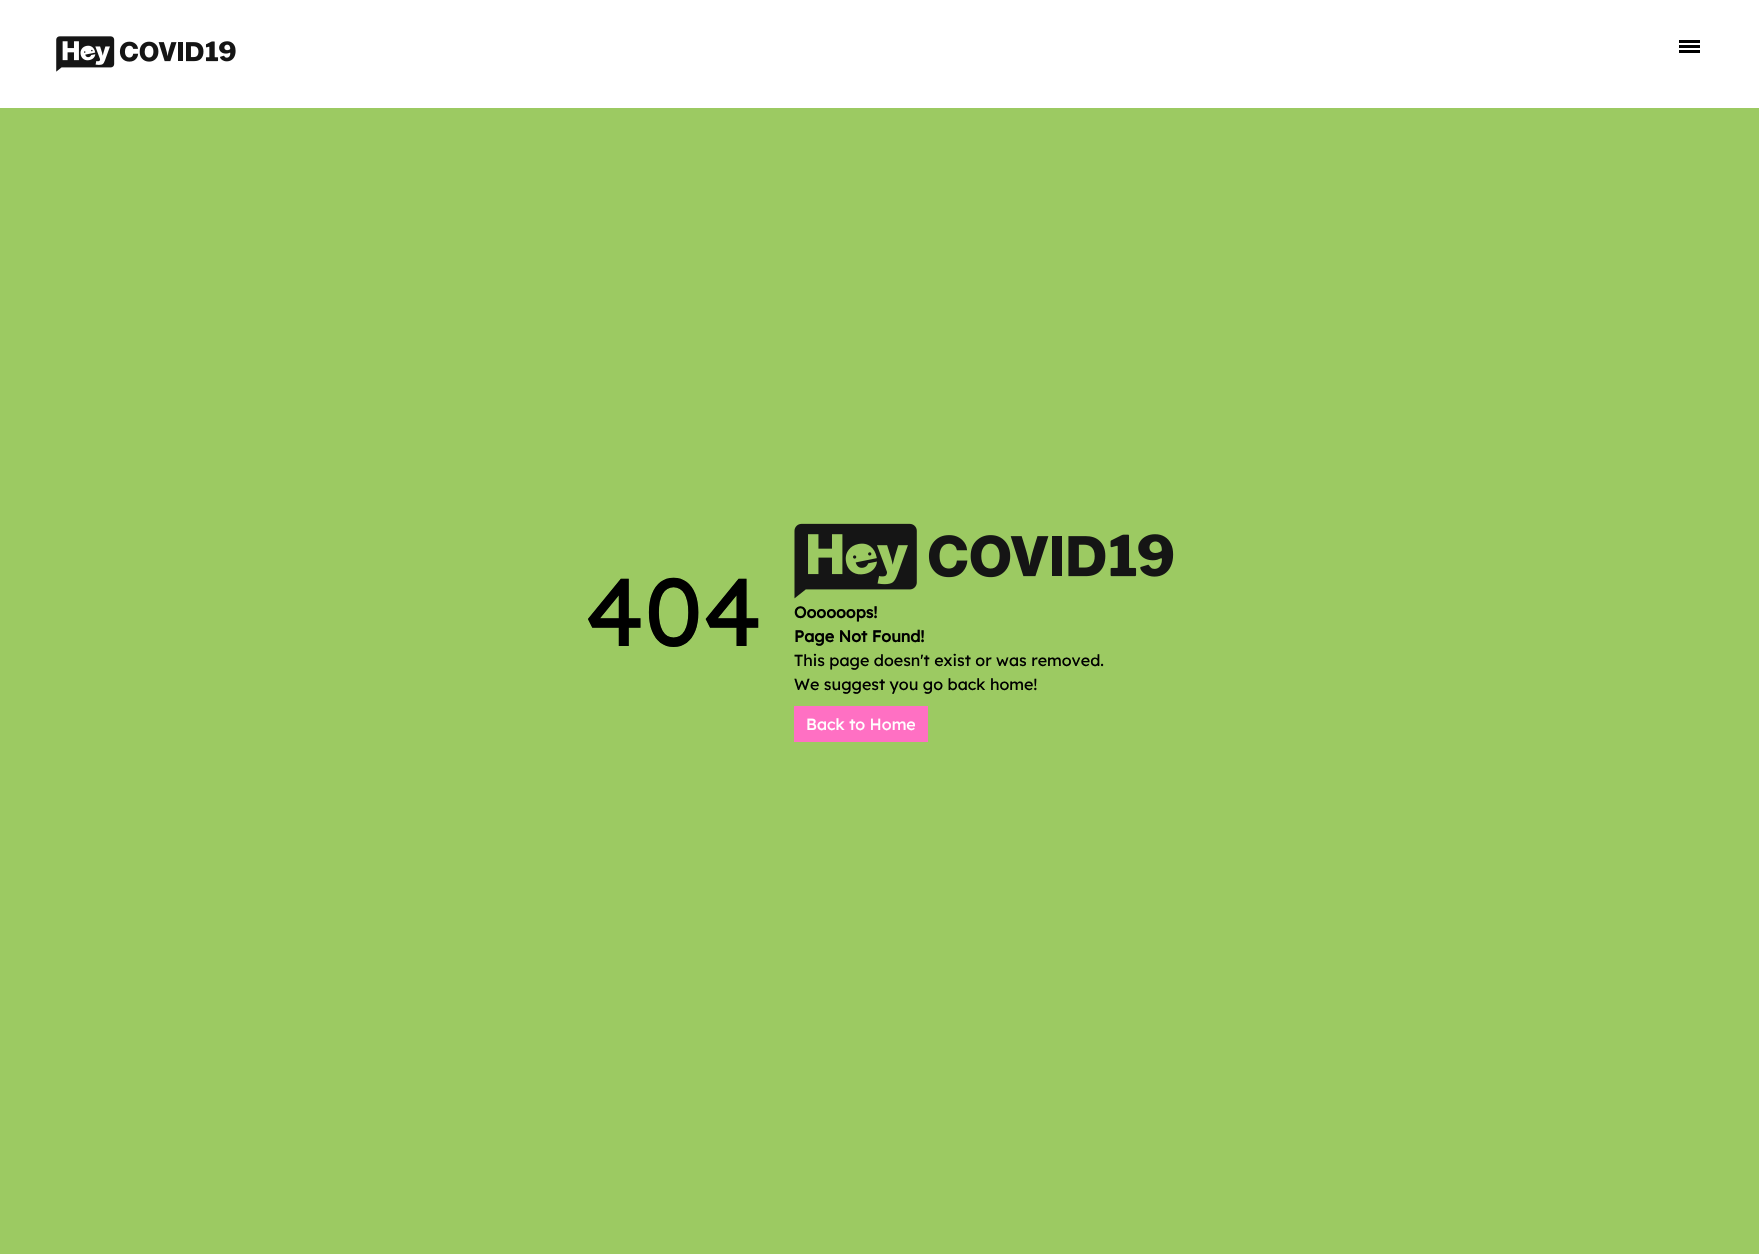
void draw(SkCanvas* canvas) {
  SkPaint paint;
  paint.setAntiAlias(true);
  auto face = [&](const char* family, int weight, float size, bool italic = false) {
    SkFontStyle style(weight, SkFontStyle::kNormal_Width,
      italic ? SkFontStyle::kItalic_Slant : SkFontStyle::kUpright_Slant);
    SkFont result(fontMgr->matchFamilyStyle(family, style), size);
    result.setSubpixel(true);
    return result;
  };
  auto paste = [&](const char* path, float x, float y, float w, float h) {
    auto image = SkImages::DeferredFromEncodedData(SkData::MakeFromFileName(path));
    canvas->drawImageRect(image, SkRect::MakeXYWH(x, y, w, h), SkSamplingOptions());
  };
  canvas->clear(0xffffffff);
  paste("img/1.png", 56, 36, 180, 36);
  paste("img/2.png", 1679, 40, 21, 13);
  paint.setColor(0xff9cca62);
  canvas->drawRect(SkRect::MakeXYWH(0, 108, 1759, 1146), paint);
  paste("img/3.png", 794, 523, 380, 76);
  paint.setColor(0xffff70c3);
  canvas->drawRect(SkRect::MakeXYWH(794, 706, 134, 36), paint);
  auto f0 = face("Lexend", 400, 96);
  paint.setColor(0xff000000);
  canvas->drawString("404", 585, 646, f0, paint);
  auto f1 = face("Lexend", 700, 16);
  canvas->drawString("Oooooops!", 794, 618, f1, paint);
  canvas->drawString("Page Not Found!", 794, 642, f1, paint);
  auto f2 = face("Lexend", 400, 16);
  canvas->drawString("This page doesn't exist or was removed.", 794, 666, f2, paint);
  canvas->drawString("We suggest you go back home!", 794, 690, f2, paint);
  paint.setColor(0xffffffff);
  canvas->drawString("Back to Home", 806, 730, f2, paint);
}
